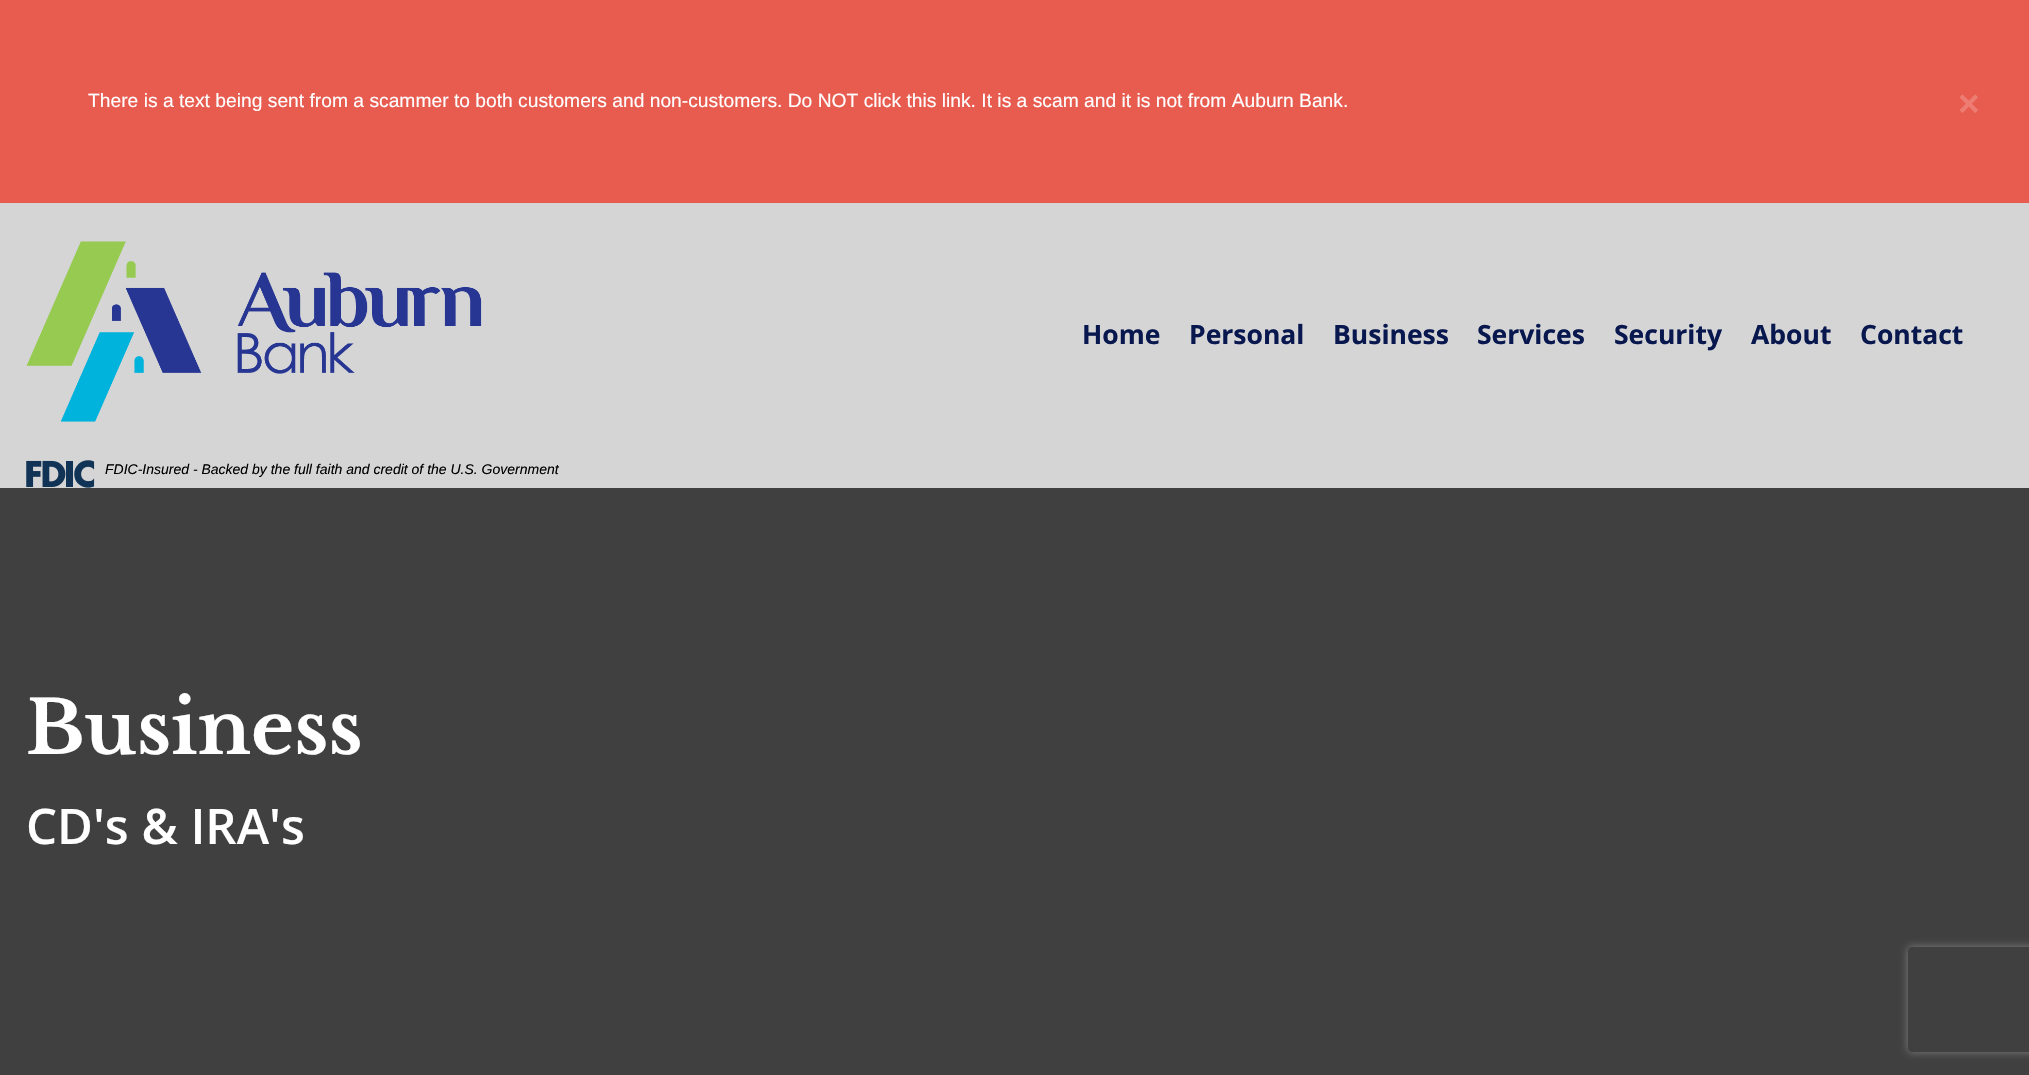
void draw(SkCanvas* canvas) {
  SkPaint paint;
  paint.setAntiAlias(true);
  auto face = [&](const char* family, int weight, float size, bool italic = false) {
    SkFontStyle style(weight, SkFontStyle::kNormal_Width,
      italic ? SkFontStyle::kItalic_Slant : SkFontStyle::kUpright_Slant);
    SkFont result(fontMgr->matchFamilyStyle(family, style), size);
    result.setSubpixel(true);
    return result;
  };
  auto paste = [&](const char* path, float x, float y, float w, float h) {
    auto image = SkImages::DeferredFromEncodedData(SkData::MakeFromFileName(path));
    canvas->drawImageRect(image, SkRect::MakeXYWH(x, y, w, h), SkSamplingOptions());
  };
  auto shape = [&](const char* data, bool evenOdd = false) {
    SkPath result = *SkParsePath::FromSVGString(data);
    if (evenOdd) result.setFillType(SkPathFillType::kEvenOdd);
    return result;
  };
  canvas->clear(0xffe85c50);
  paint.setColor(0xffd5d5d5);
  canvas->drawRect(SkRect::MakeXYWH(0, 203, 2029, 285), paint);
  paste("img/1.png", 26, 241, 456, 181);
  paste("img/2.png", 26, 460, 69, 28);
  paint.setColor(0xff404040);
  canvas->drawRect(SkRect::MakeXYWH(0, 488, 2029, 587), paint);
  canvas->save();
  canvas->clipPath(shape("M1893 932H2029V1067H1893ZM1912 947H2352C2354 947 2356 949 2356 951V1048C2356 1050 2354 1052 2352 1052H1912C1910 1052 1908 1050 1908 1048V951C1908 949 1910 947 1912 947Z", true), true);
  paint.setColor(0xff808080);
  paint.setMaskFilter(SkMaskFilter::MakeBlur(kNormal_SkBlurStyle, 4.5f));
  canvas->drawRoundRect(SkRect::MakeXYWH(1908, 947, 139, 105), 4, 4, paint);
  paint.setMaskFilter(nullptr);
  canvas->restore();
  auto f0 = face("Liberation Sans", 400, 19.25f);
  paint.setColor(0xffffffff);
  canvas->drawString("There is a text being sent from a scammer to both customers and non-customers. Do NOT click this link. It is a scam and it is not from Auburn Bank.", 88, 107, f0, paint);
  auto f1 = face("Liberation Sans", 700, 37);
  paint.setColor(0xffed7d73);
  canvas->drawString("×", 1958, 116, f1, paint);
  auto f2 = face("Open Sans", 700, 26.5f);
  paint.setColor(0xff08184f);
  {
    const struct { const char* s; float x, y; } items[] = {
      {"Home", 1082, 344},
      {"Personal", 1189, 344},
      {"Business", 1333, 344},
      {"Services", 1477, 344},
      {"Security", 1614, 344},
      {"About", 1751, 344},
      {"Contact", 1860, 344},
    };
    for (auto [s, x, y] : items) {
      canvas->drawString(s, x, y, f2, paint);
    }
  }
  auto f3 = face("Liberation Sans", 400, 14, true);
  paint.setColor(0xff000000);
  canvas->drawString("FDIC-Insured - Backed by the full faith and credit of the U.S. Government", 105, 474, f3, paint);
  auto f4 = face("Libre Baskerville", 700, 73.5f);
  paint.setColor(0xffffffff);
  canvas->drawString("Business", 26, 754, f4, paint);
  auto f5 = face("Open Sans", 600, 49);
  canvas->drawString("CD's & IRA's", 26, 844, f5, paint);
}
